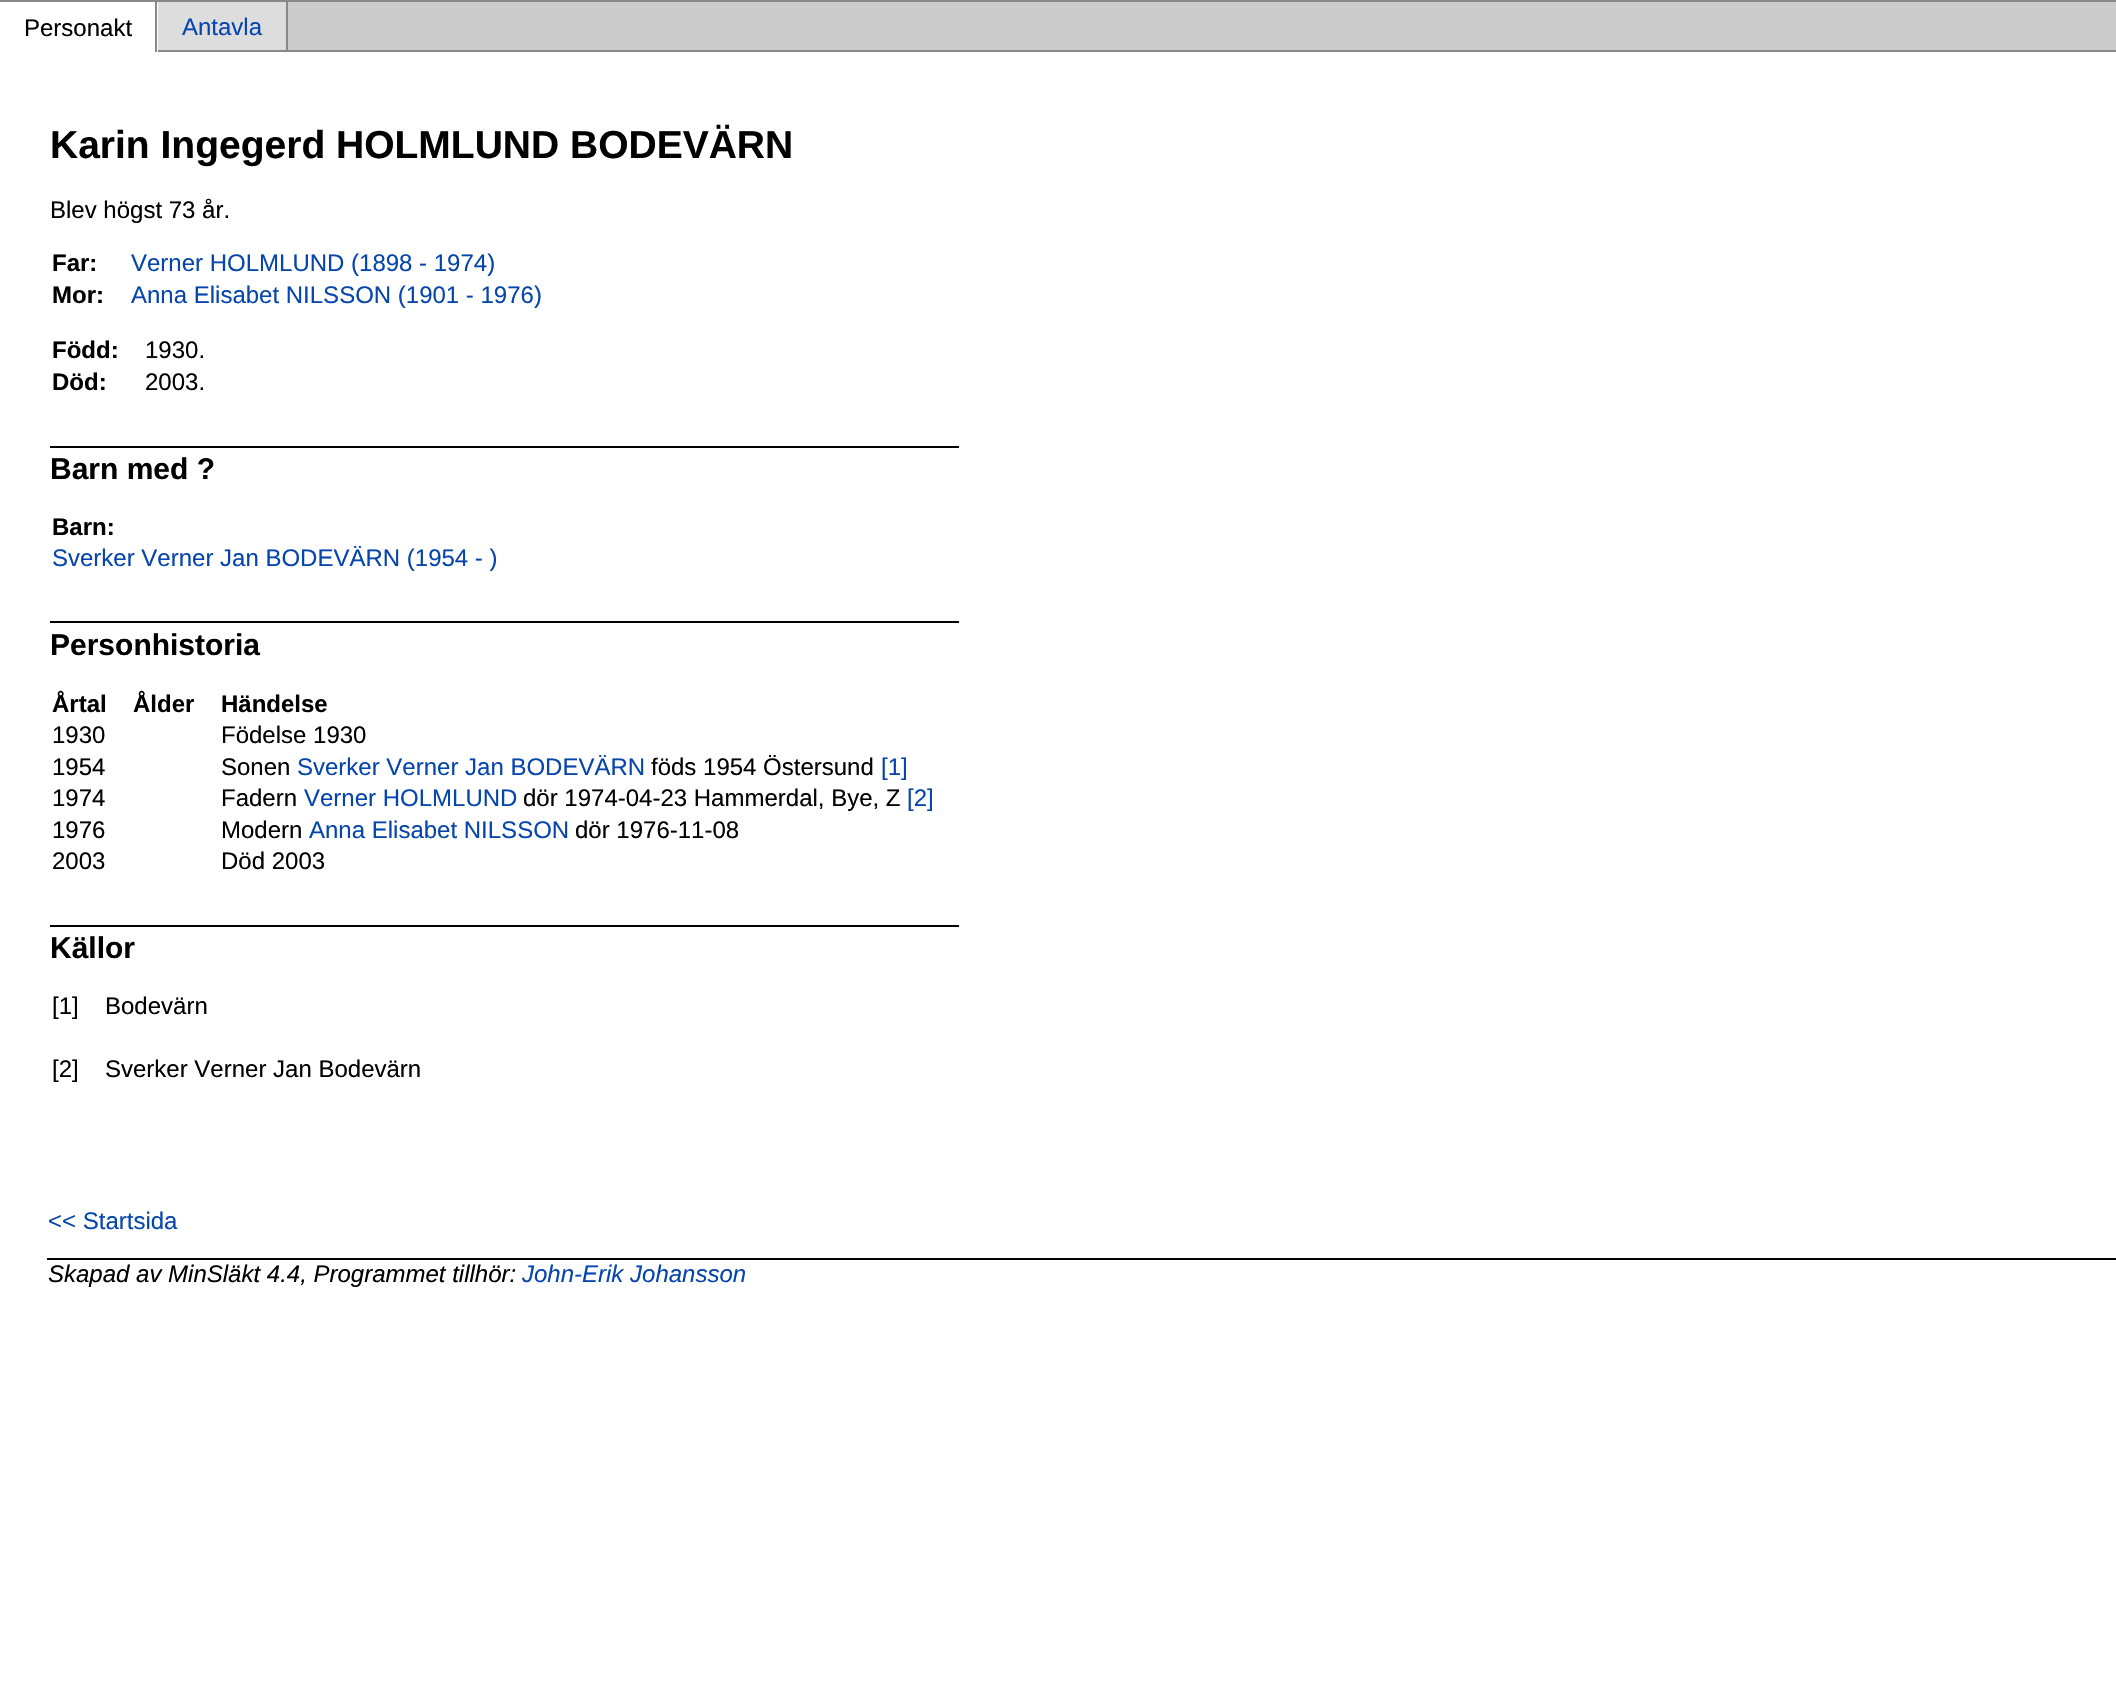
void draw(SkCanvas* canvas) {
  SkPaint paint;
  paint.setAntiAlias(true);
  auto face = [&](const char* family, int weight, float size, bool italic = false) {
    SkFontStyle style(weight, SkFontStyle::kNormal_Width,
      italic ? SkFontStyle::kItalic_Slant : SkFontStyle::kUpright_Slant);
    SkFont result(fontMgr->matchFamilyStyle(family, style), size);
    result.setSubpixel(true);
    return result;
  };
  canvas->clear(0xffffffff);
  {
    const struct { float x, y, w, h; SkColor color; } items[] = {
      {0, 0, 2116, 2, 0xff888888},
      {155, 0, 2, 52, 0xff888888},
      {158, 2, 128, 48, 0xffdddddd},
      {286, 0, 2, 52, 0xff888888},
      {158, 50, 1958, 2, 0xff888888},
      {288, 2, 1828, 48, 0xffcccccc},
      {50, 446, 909, 2, 0xff000000},
      {50, 621, 909, 2, 0xff000000},
      {50, 925, 909, 2, 0xff000000},
      {47, 1258, 2069, 2, 0xff000000},
    };
    for (auto [x, y, w, h, color] : items) {
      paint.setColor(color);
      canvas->drawRect(SkRect::MakeXYWH(x, y, w, h), paint);
    }
  }
  auto f0 = face("Liberation Sans", 400, 24);
  canvas->drawString("Personakt", 24, 36, f0, paint);
  paint.setColor(0xff0645ad);
  canvas->drawString("Antavla", 182, 35, f0, paint);
  auto f1 = face("Liberation Sans", 700, 39);
  paint.setColor(0xff000000);
  canvas->drawString("Karin Ingegerd HOLMLUND BODEVÄRN", 50, 158, f1, paint);
  canvas->drawString("Blev högst 73 år.", 50, 218, f0, paint);
  auto f2 = face("Liberation Sans", 700, 24);
  canvas->drawString("Far:", 52, 271, f2, paint);
  paint.setColor(0xff0645ad);
  canvas->drawString("Verner HOLMLUND (1898 - 1974)", 131, 271, f0, paint);
  paint.setColor(0xff000000);
  canvas->drawString("Mor:", 52, 303, f2, paint);
  paint.setColor(0xff0645ad);
  canvas->drawString("Anna Elisabet NILSSON (1901 - 1976)", 131, 303, f0, paint);
  paint.setColor(0xff000000);
  canvas->drawString("Född:", 52, 358, f2, paint);
  canvas->drawString("1930.", 145, 358, f0, paint);
  canvas->drawString("Död:", 52, 390, f2, paint);
  canvas->drawString("2003.", 145, 390, f0, paint);
  auto f3 = face("Liberation Sans", 700, 30);
  canvas->drawString("Barn med ?", 50, 479, f3, paint);
  canvas->drawString("Barn:", 52, 535, f2, paint);
  paint.setColor(0xff0645ad);
  canvas->drawString("Sverker Verner Jan BODEVÄRN (1954 - )", 52, 566, f0, paint);
  paint.setColor(0xff000000);
  canvas->drawString("Personhistoria", 50, 655, f3, paint);
  {
    const struct { const char* s; float x, y; } items[] = {
      {"Årtal", 52, 712},
      {"Ålder", 133, 712},
      {"Händelse", 221, 712},
    };
    for (auto [s, x, y] : items) {
      canvas->drawString(s, x, y, f2, paint);
    }
  }
  {
    const struct { const char* s; float x, y; } items[] = {
      {"1930", 52, 743},
      {"Födelse 1930", 221, 743},
      {"1954", 52, 775},
      {"Sonen", 221, 775},
    };
    for (auto [s, x, y] : items) {
      canvas->drawString(s, x, y, f0, paint);
    }
  }
  paint.setColor(0xff0645ad);
  canvas->drawString("Sverker Verner Jan BODEVÄRN", 297, 775, f0, paint);
  paint.setColor(0xff000000);
  canvas->drawString("föds 1954 Östersund", 651, 775, f0, paint);
  paint.setColor(0xff0645ad);
  canvas->drawString("[1]", 881, 775, f0, paint);
  paint.setColor(0xff000000);
  canvas->drawString("1974", 52, 806, f0, paint);
  canvas->drawString("Fadern", 221, 806, f0, paint);
  paint.setColor(0xff0645ad);
  canvas->drawString("Verner HOLMLUND", 304, 806, f0, paint);
  paint.setColor(0xff000000);
  canvas->drawString("dör 1974-04-23 Hammerdal, Bye, Z", 523, 806, f0, paint);
  paint.setColor(0xff0645ad);
  canvas->drawString("[2]", 907, 806, f0, paint);
  paint.setColor(0xff000000);
  canvas->drawString("1976", 52, 838, f0, paint);
  canvas->drawString("Modern", 221, 838, f0, paint);
  paint.setColor(0xff0645ad);
  canvas->drawString("Anna Elisabet NILSSON", 309, 838, f0, paint);
  paint.setColor(0xff000000);
  {
    const struct { const char* s; float x, y; } items[] = {
      {"dör 1976-11-08", 575, 838},
      {"2003", 52, 869},
      {"Död 2003", 221, 869},
    };
    for (auto [s, x, y] : items) {
      canvas->drawString(s, x, y, f0, paint);
    }
  }
  canvas->drawString("Källor", 50, 958, f3, paint);
  {
    const struct { const char* s; float x, y; } items[] = {
      {"[1]", 52, 1014},
      {"Bodevärn", 105, 1014},
      {"[2]", 52, 1077},
      {"Sverker Verner Jan Bodevärn", 105, 1077},
    };
    for (auto [s, x, y] : items) {
      canvas->drawString(s, x, y, f0, paint);
    }
  }
  paint.setColor(0xff0645ad);
  canvas->drawString("<< Startsida", 48, 1229, f0, paint);
  auto f4 = face("Liberation Sans", 400, 24, true);
  paint.setColor(0xff000000);
  canvas->drawString("Skapad av MinSläkt 4.4, Programmet tillhör:", 48, 1282, f4, paint);
  paint.setColor(0xff0645ad);
  canvas->drawString("John-Erik Johansson", 522, 1282, f4, paint);
}
